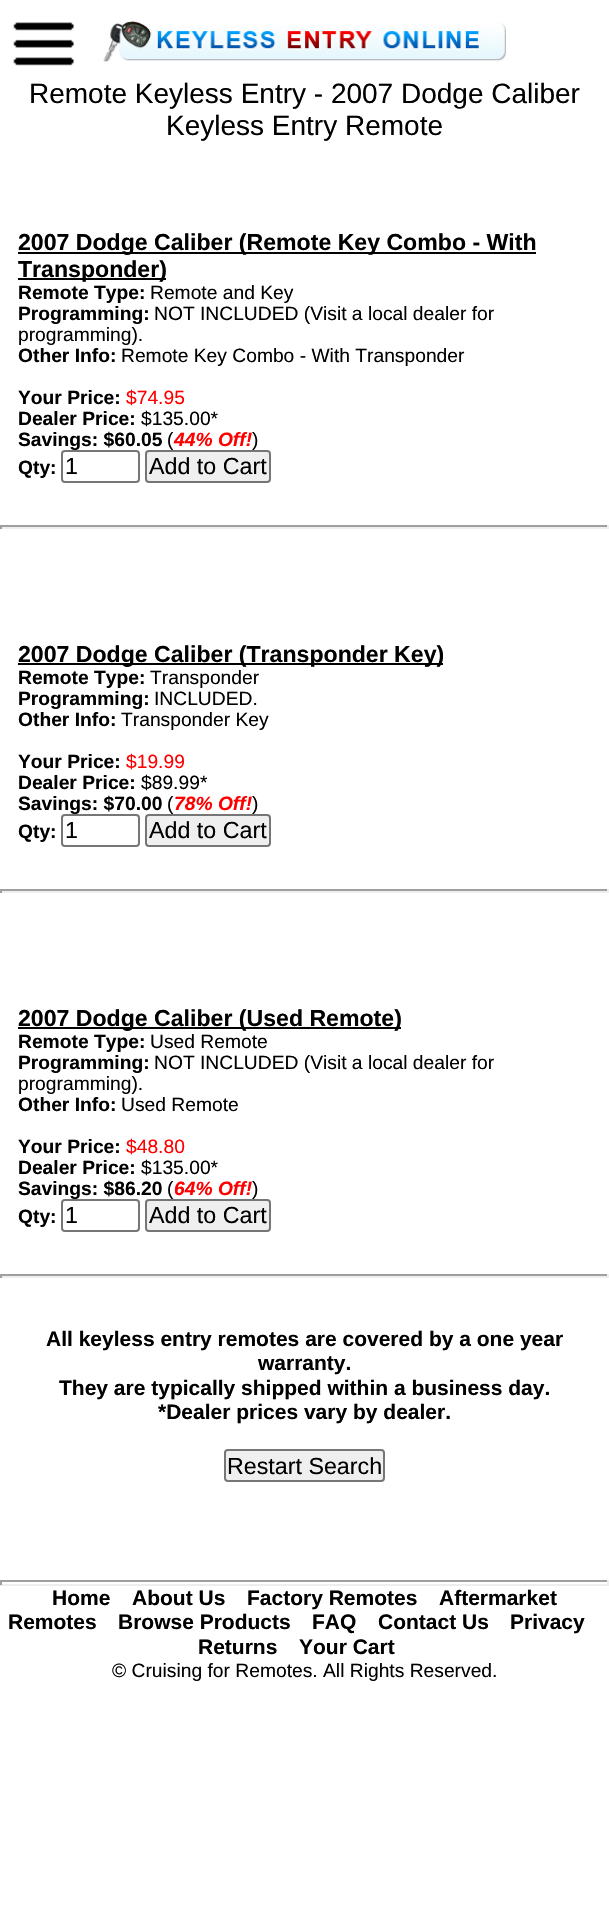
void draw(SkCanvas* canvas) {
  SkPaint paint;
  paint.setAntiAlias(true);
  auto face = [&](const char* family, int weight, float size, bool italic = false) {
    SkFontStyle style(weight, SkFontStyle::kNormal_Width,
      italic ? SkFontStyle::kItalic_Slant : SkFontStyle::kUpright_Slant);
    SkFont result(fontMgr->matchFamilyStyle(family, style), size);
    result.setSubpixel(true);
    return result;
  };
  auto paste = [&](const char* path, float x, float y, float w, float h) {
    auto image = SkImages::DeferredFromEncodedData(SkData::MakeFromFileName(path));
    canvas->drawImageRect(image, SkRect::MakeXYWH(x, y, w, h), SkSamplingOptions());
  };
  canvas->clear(0xffffffff);
  paste("img/1.png", 13, 22, 61, 44);
  paste("img/2.png", 103, 21, 403, 41);
  {
    const struct { float x, y, w, h; SkColor color; } items[] = {
      {18, 252, 518, 2, 0xff000000},
      {18, 278, 148, 2, 0xff000000},
      {0, 525, 609, 2, 0xff9f9f9f},
      {607, 525, 2, 4, 0xffeeeeee},
      {0, 527, 609, 2, 0xffeeeeee},
      {0, 525, 2, 4, 0xff9f9f9f},
      {18, 663, 425, 2, 0xff000000},
      {0, 889, 609, 2, 0xff9f9f9f},
      {607, 889, 2, 4, 0xffeeeeee},
      {0, 891, 609, 2, 0xffeeeeee},
      {0, 889, 2, 4, 0xff9f9f9f},
      {18, 1027, 383, 2, 0xff000000},
      {0, 1274, 609, 2, 0xff9f9f9f},
      {607, 1274, 2, 4, 0xffeeeeee},
      {0, 1276, 609, 2, 0xffeeeeee},
      {0, 1274, 2, 4, 0xff9f9f9f},
    };
    for (auto [x, y, w, h, color] : items) {
      paint.setColor(color);
      canvas->drawRect(SkRect::MakeXYWH(x, y, w, h), paint);
    }
  }
  paint.setColor(0xffefefef);
  canvas->drawRoundRect(SkRect::MakeXYWH(225, 1450, 159, 31), 3, 3, paint);
  paint.setStroke(true);
  paint.setStrokeWidth(2);
  paint.setColor(0xff767676);
  canvas->drawRoundRect(SkRect::MakeXYWH(225, 1450, 159, 31), 3, 3, paint);
  paint.setStroke(false);
  {
    const struct { float x, y, w, h; SkColor color; } items[] = {
      {0, 1580, 609, 2, 0xff9f9f9f},
      {607, 1580, 2, 5, 0xffeeeeee},
      {0, 1584, 609, 2, 0xffeeeeee},
      {0, 1580, 2, 5, 0xff9f9f9f},
    };
    for (auto [x, y, w, h, color] : items) {
      paint.setColor(color);
      canvas->drawRect(SkRect::MakeXYWH(x, y, w, h), paint);
    }
  }
  auto f0 = face("Liberation Sans", 400, 28);
  paint.setColor(0xff000000);
  canvas->drawString("Remote Keyless Entry - 2007 Dodge Caliber", 29, 103, f0, paint);
  canvas->drawString("Keyless Entry Remote", 166, 135, f0, paint);
  auto f1 = face("Liberation Sans", 700, 23.1f);
  canvas->drawString("2007 Dodge Caliber (Remote Key Combo - With", 18, 250, f1, paint);
  canvas->drawString("Transponder)", 18, 277, f1, paint);
  auto f2 = face("Liberation Sans", 700, 19.25f);
  canvas->drawString("Remote Type:", 18, 299, f2, paint);
  auto f3 = face("Liberation Sans", 400, 19.25f);
  canvas->drawString("Remote and Key", 150, 299, f3, paint);
  canvas->drawString("Programming:", 18, 320, f2, paint);
  canvas->drawString("NOT INCLUDED (Visit a local dealer for", 154, 320, f3, paint);
  canvas->drawString("programming).", 18, 341, f3, paint);
  canvas->drawString("Other Info:", 18, 362, f2, paint);
  canvas->drawString("Remote Key Combo - With Transponder", 121, 362, f3, paint);
  canvas->drawString("Your Price:", 18, 404, f2, paint);
  paint.setColor(0xffff0000);
  canvas->drawString("$74.95", 126, 404, f3, paint);
  paint.setColor(0xff000000);
  canvas->drawString("Dealer Price:", 18, 425, f2, paint);
  canvas->drawString("$135.00*", 141, 425, f3, paint);
  canvas->drawString("Savings: $60.05", 18, 446, f2, paint);
  canvas->drawString("(", 167, 446, f3, paint);
  auto f4 = face("Liberation Sans", 700, 19.25f, true);
  paint.setColor(0xffff0000);
  canvas->drawString("44% Off!", 174, 446, f4, paint);
  paint.setColor(0xff000000);
  canvas->drawString(")", 252, 446, f3, paint);
  canvas->drawString("Qty:", 18, 474, f2, paint);
  paint.setColor(0xffffffff);
  canvas->drawRoundRect(SkRect::MakeXYWH(62, 451, 77, 31), 3, 3, paint);
  paint.setStroke(true);
  paint.setColor(0xff767676);
  canvas->drawRoundRect(SkRect::MakeXYWH(62, 451, 77, 31), 3, 3, paint);
  auto f5 = face("Liberation Sans", 400, 23.25f);
  paint.setStroke(false);
  paint.setColor(0xff000000);
  canvas->drawString("1", 65, 474, f5, paint);
  paint.setColor(0xffefefef);
  canvas->drawRoundRect(SkRect::MakeXYWH(146, 451, 124, 31), 3, 3, paint);
  paint.setStroke(true);
  paint.setColor(0xff767676);
  canvas->drawRoundRect(SkRect::MakeXYWH(146, 451, 124, 31), 3, 3, paint);
  paint.setStroke(false);
  paint.setColor(0xff000000);
  canvas->drawString("Add to Cart", 149, 474, f5, paint);
  canvas->drawString("2007 Dodge Caliber (Transponder Key)", 18, 662, f1, paint);
  canvas->drawString("Remote Type:", 18, 684, f2, paint);
  canvas->drawString("Transponder", 150, 684, f3, paint);
  canvas->drawString("Programming:", 18, 705, f2, paint);
  canvas->drawString("INCLUDED.", 154, 705, f3, paint);
  canvas->drawString("Other Info:", 18, 726, f2, paint);
  canvas->drawString("Transponder Key", 121, 726, f3, paint);
  canvas->drawString("Your Price:", 18, 768, f2, paint);
  paint.setColor(0xffff0000);
  canvas->drawString("$19.99", 126, 768, f3, paint);
  paint.setColor(0xff000000);
  canvas->drawString("Dealer Price:", 18, 789, f2, paint);
  canvas->drawString("$89.99*", 141, 789, f3, paint);
  canvas->drawString("Savings: $70.00", 18, 810, f2, paint);
  canvas->drawString("(", 167, 810, f3, paint);
  paint.setColor(0xffff0000);
  canvas->drawString("78% Off!", 174, 810, f4, paint);
  paint.setColor(0xff000000);
  canvas->drawString(")", 252, 810, f3, paint);
  canvas->drawString("Qty:", 18, 838, f2, paint);
  paint.setColor(0xffffffff);
  canvas->drawRoundRect(SkRect::MakeXYWH(62, 815, 77, 31), 3, 3, paint);
  paint.setStroke(true);
  paint.setColor(0xff767676);
  canvas->drawRoundRect(SkRect::MakeXYWH(62, 815, 77, 31), 3, 3, paint);
  paint.setStroke(false);
  paint.setColor(0xff000000);
  canvas->drawString("1", 65, 838, f5, paint);
  paint.setColor(0xffefefef);
  canvas->drawRoundRect(SkRect::MakeXYWH(146, 815, 124, 31), 3, 3, paint);
  paint.setStroke(true);
  paint.setColor(0xff767676);
  canvas->drawRoundRect(SkRect::MakeXYWH(146, 815, 124, 31), 3, 3, paint);
  paint.setStroke(false);
  paint.setColor(0xff000000);
  canvas->drawString("Add to Cart", 149, 838, f5, paint);
  canvas->drawString("2007 Dodge Caliber (Used Remote)", 18, 1026, f1, paint);
  canvas->drawString("Remote Type:", 18, 1048, f2, paint);
  canvas->drawString("Used Remote", 150, 1048, f3, paint);
  canvas->drawString("Programming:", 18, 1069, f2, paint);
  canvas->drawString("NOT INCLUDED (Visit a local dealer for", 154, 1069, f3, paint);
  canvas->drawString("programming).", 18, 1090, f3, paint);
  canvas->drawString("Other Info:", 18, 1111, f2, paint);
  canvas->drawString("Used Remote", 121, 1111, f3, paint);
  canvas->drawString("Your Price:", 18, 1153, f2, paint);
  paint.setColor(0xffff0000);
  canvas->drawString("$48.80", 126, 1153, f3, paint);
  paint.setColor(0xff000000);
  canvas->drawString("Dealer Price:", 18, 1174, f2, paint);
  canvas->drawString("$135.00*", 141, 1174, f3, paint);
  canvas->drawString("Savings: $86.20", 18, 1195, f2, paint);
  canvas->drawString("(", 167, 1195, f3, paint);
  paint.setColor(0xffff0000);
  canvas->drawString("64% Off!", 174, 1195, f4, paint);
  paint.setColor(0xff000000);
  canvas->drawString(")", 252, 1195, f3, paint);
  canvas->drawString("Qty:", 18, 1223, f2, paint);
  paint.setColor(0xffffffff);
  canvas->drawRoundRect(SkRect::MakeXYWH(62, 1200, 77, 31), 3, 3, paint);
  paint.setStroke(true);
  paint.setColor(0xff767676);
  canvas->drawRoundRect(SkRect::MakeXYWH(62, 1200, 77, 31), 3, 3, paint);
  paint.setStroke(false);
  paint.setColor(0xff000000);
  canvas->drawString("1", 65, 1223, f5, paint);
  paint.setColor(0xffefefef);
  canvas->drawRoundRect(SkRect::MakeXYWH(146, 1200, 124, 31), 3, 3, paint);
  paint.setStroke(true);
  paint.setColor(0xff767676);
  canvas->drawRoundRect(SkRect::MakeXYWH(146, 1200, 124, 31), 3, 3, paint);
  paint.setStroke(false);
  paint.setColor(0xff000000);
  canvas->drawString("Add to Cart", 149, 1223, f5, paint);
  auto f6 = face("Liberation Sans", 700, 21);
  {
    const struct { const char* s; float x, y; } items[] = {
      {"All keyless entry remotes are covered by a one year", 46, 1346},
      {"warranty.", 258, 1370},
      {"They are typically shipped within a business day.", 59, 1395},
      {"*Dealer prices vary by dealer.", 158, 1419},
    };
    for (auto [s, x, y] : items) {
      canvas->drawString(s, x, y, f6, paint);
    }
  }
  canvas->drawString("Restart Search", 227, 1474, f5, paint);
  {
    const struct { const char* s; float x, y; } items[] = {
      {"Home", 52, 1605},
      {"About Us", 132, 1605},
      {"Factory Remotes", 247, 1605},
      {"Aftermarket", 439, 1605},
      {"Remotes", 8, 1629},
      {"Browse Products", 118, 1629},
      {"FAQ", 312, 1629},
      {"Contact Us", 378, 1629},
      {"Privacy", 510, 1629},
      {"Returns", 198, 1654},
      {"Your Cart", 299, 1654},
    };
    for (auto [s, x, y] : items) {
      canvas->drawString(s, x, y, f6, paint);
    }
  }
  canvas->drawString("© Cruising for Remotes. All Rights Reserved.", 112, 1677, f3, paint);
}
